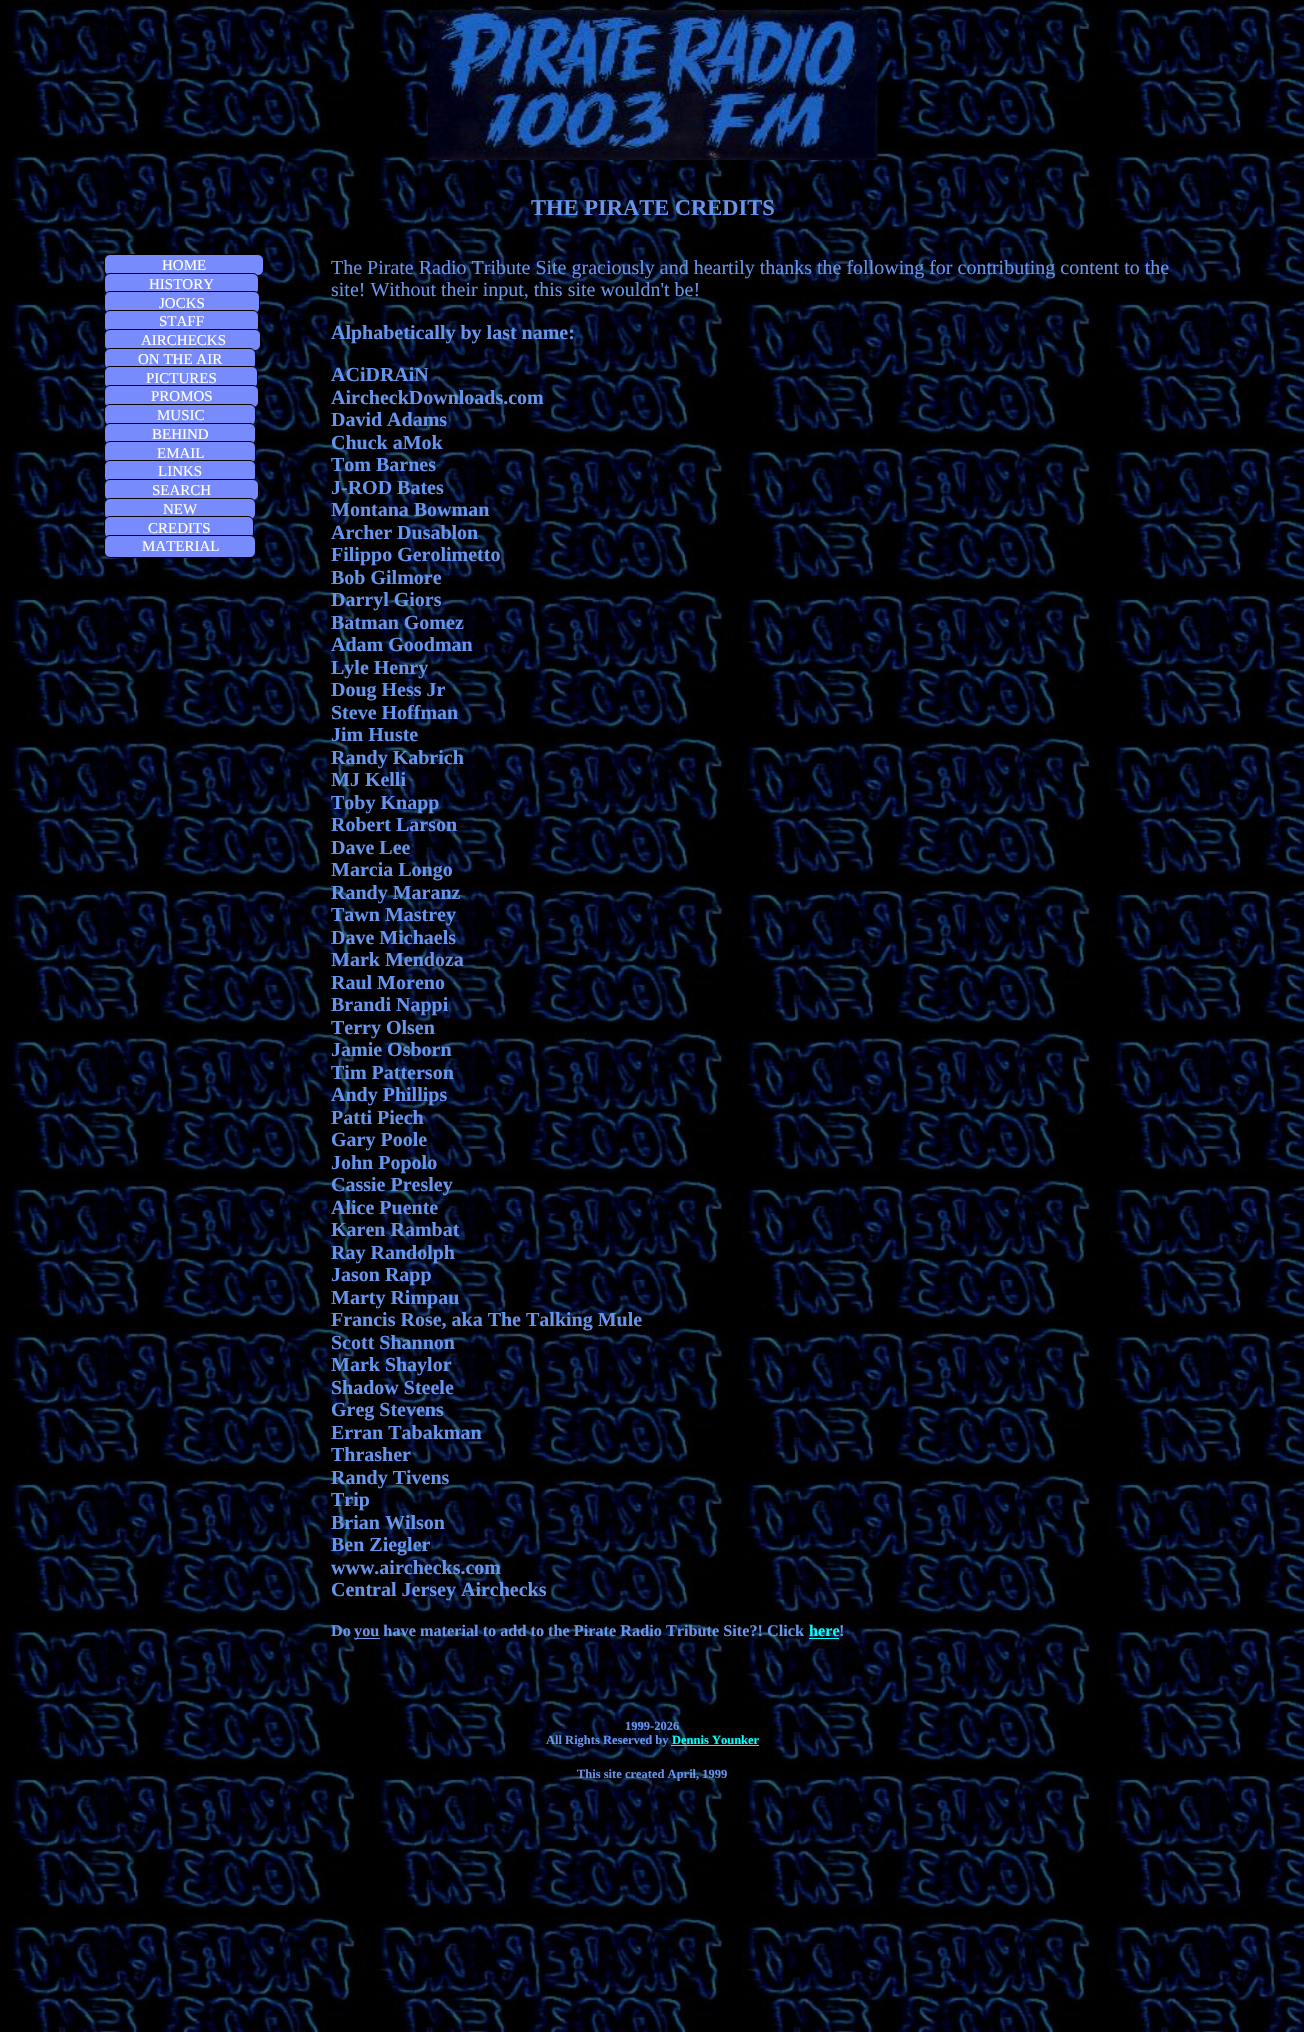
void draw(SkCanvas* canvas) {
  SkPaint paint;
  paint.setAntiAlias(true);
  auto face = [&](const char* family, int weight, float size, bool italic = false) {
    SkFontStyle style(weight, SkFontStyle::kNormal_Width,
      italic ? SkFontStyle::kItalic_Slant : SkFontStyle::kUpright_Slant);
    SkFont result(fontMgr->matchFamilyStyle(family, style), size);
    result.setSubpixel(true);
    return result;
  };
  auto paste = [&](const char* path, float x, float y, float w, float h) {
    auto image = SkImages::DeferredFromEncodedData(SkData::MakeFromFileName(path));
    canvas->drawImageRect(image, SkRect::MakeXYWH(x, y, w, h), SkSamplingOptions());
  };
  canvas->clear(0xffffffff);
  paste("img/1.png", 0, 0, 1304, 2032);
  paste("img/2.png", 427, 10, 451, 150);
  paint.setColor(0xff778bfd);
  canvas->drawRoundRect(SkRect::MakeXYWH(104.5f, 254.5f, 159, 21), 5.5f, 5.5f, paint);
  paint.setStroke(true);
  paint.setStrokeWidth(1);
  paint.setColor(0xff000000);
  canvas->drawRoundRect(SkRect::MakeXYWH(104.5f, 254.5f, 159, 21), 5.5f, 5.5f, paint);
  paint.setStroke(false);
  paint.setColor(0xff778bfd);
  canvas->drawRoundRect(SkRect::MakeXYWH(104.5f, 273.5f, 154, 21), 5.5f, 5.5f, paint);
  paint.setStroke(true);
  paint.setColor(0xff000000);
  canvas->drawRoundRect(SkRect::MakeXYWH(104.5f, 273.5f, 154, 21), 5.5f, 5.5f, paint);
  paint.setStroke(false);
  paint.setColor(0xff778bfd);
  canvas->drawRoundRect(SkRect::MakeXYWH(104.5f, 291.5f, 155, 22), 5.5f, 5.5f, paint);
  paint.setStroke(true);
  paint.setColor(0xff000000);
  canvas->drawRoundRect(SkRect::MakeXYWH(104.5f, 291.5f, 155, 22), 5.5f, 5.5f, paint);
  paint.setStroke(false);
  paint.setColor(0xff778bfd);
  canvas->drawRoundRect(SkRect::MakeXYWH(104.5f, 310.5f, 154, 22), 5.5f, 5.5f, paint);
  paint.setStroke(true);
  paint.setColor(0xff000000);
  canvas->drawRoundRect(SkRect::MakeXYWH(104.5f, 310.5f, 154, 22), 5.5f, 5.5f, paint);
  paint.setStroke(false);
  paint.setColor(0xff778bfd);
  canvas->drawRoundRect(SkRect::MakeXYWH(104.5f, 329.5f, 156, 21), 5.5f, 5.5f, paint);
  paint.setStroke(true);
  paint.setColor(0xff000000);
  canvas->drawRoundRect(SkRect::MakeXYWH(104.5f, 329.5f, 156, 21), 5.5f, 5.5f, paint);
  paint.setStroke(false);
  paint.setColor(0xff778bfd);
  canvas->drawRoundRect(SkRect::MakeXYWH(104.5f, 348.5f, 151, 21), 5.5f, 5.5f, paint);
  paint.setStroke(true);
  paint.setColor(0xff000000);
  canvas->drawRoundRect(SkRect::MakeXYWH(104.5f, 348.5f, 151, 21), 5.5f, 5.5f, paint);
  paint.setStroke(false);
  paint.setColor(0xff778bfd);
  canvas->drawRoundRect(SkRect::MakeXYWH(104.5f, 366.5f, 153, 22), 5.5f, 5.5f, paint);
  paint.setStroke(true);
  paint.setColor(0xff000000);
  canvas->drawRoundRect(SkRect::MakeXYWH(104.5f, 366.5f, 153, 22), 5.5f, 5.5f, paint);
  paint.setStroke(false);
  paint.setColor(0xff778bfd);
  canvas->drawRoundRect(SkRect::MakeXYWH(104.5f, 385.5f, 154, 22), 5.5f, 5.5f, paint);
  paint.setStroke(true);
  paint.setColor(0xff000000);
  canvas->drawRoundRect(SkRect::MakeXYWH(104.5f, 385.5f, 154, 22), 5.5f, 5.5f, paint);
  paint.setStroke(false);
  paint.setColor(0xff778bfd);
  canvas->drawRoundRect(SkRect::MakeXYWH(104.5f, 404.5f, 151, 21), 5.5f, 5.5f, paint);
  paint.setStroke(true);
  paint.setColor(0xff000000);
  canvas->drawRoundRect(SkRect::MakeXYWH(104.5f, 404.5f, 151, 21), 5.5f, 5.5f, paint);
  paint.setStroke(false);
  paint.setColor(0xff778bfd);
  canvas->drawRoundRect(SkRect::MakeXYWH(104.5f, 423.5f, 151, 21), 5.5f, 5.5f, paint);
  paint.setStroke(true);
  paint.setColor(0xff000000);
  canvas->drawRoundRect(SkRect::MakeXYWH(104.5f, 423.5f, 151, 21), 5.5f, 5.5f, paint);
  paint.setStroke(false);
  paint.setColor(0xff778bfd);
  canvas->drawRoundRect(SkRect::MakeXYWH(104.5f, 441.5f, 151, 22), 5.5f, 5.5f, paint);
  paint.setStroke(true);
  paint.setColor(0xff000000);
  canvas->drawRoundRect(SkRect::MakeXYWH(104.5f, 441.5f, 151, 22), 5.5f, 5.5f, paint);
  paint.setStroke(false);
  paint.setColor(0xff778bfd);
  canvas->drawRoundRect(SkRect::MakeXYWH(104.5f, 460.5f, 151, 22), 5.5f, 5.5f, paint);
  paint.setStroke(true);
  paint.setColor(0xff000000);
  canvas->drawRoundRect(SkRect::MakeXYWH(104.5f, 460.5f, 151, 22), 5.5f, 5.5f, paint);
  paint.setStroke(false);
  paint.setColor(0xff778bfd);
  canvas->drawRoundRect(SkRect::MakeXYWH(104.5f, 479.5f, 154, 21), 5.5f, 5.5f, paint);
  paint.setStroke(true);
  paint.setColor(0xff000000);
  canvas->drawRoundRect(SkRect::MakeXYWH(104.5f, 479.5f, 154, 21), 5.5f, 5.5f, paint);
  paint.setStroke(false);
  paint.setColor(0xff778bfd);
  canvas->drawRoundRect(SkRect::MakeXYWH(104.5f, 498.5f, 151, 21), 5.5f, 5.5f, paint);
  paint.setStroke(true);
  paint.setColor(0xff000000);
  canvas->drawRoundRect(SkRect::MakeXYWH(104.5f, 498.5f, 151, 21), 5.5f, 5.5f, paint);
  paint.setStroke(false);
  paint.setColor(0xff778bfd);
  canvas->drawRoundRect(SkRect::MakeXYWH(104.5f, 516.5f, 149, 22), 5.5f, 5.5f, paint);
  paint.setStroke(true);
  paint.setColor(0xff000000);
  canvas->drawRoundRect(SkRect::MakeXYWH(104.5f, 516.5f, 149, 22), 5.5f, 5.5f, paint);
  paint.setStroke(false);
  paint.setColor(0xff778bfd);
  canvas->drawRoundRect(SkRect::MakeXYWH(104.5f, 535.5f, 151, 22), 5.5f, 5.5f, paint);
  paint.setStroke(true);
  paint.setColor(0xff000000);
  canvas->drawRoundRect(SkRect::MakeXYWH(104.5f, 535.5f, 151, 22), 5.5f, 5.5f, paint);
  paint.setStroke(false);
  {
    const struct { float x, y, w, h; SkColor color; } items[] = {
      {355, 1638, 25, 1, 0xff6595ed},
      {809, 1638, 30, 1, 0xff00ffff},
      {671, 1745, 88, 1, 0xff00ffff},
    };
    for (auto [x, y, w, h, color] : items) {
      paint.setColor(color);
      canvas->drawRect(SkRect::MakeXYWH(x, y, w, h), paint);
    }
  }
  auto f0 = face("Liberation Serif", 700, 22.5f);
  paint.setColor(0xff6595ed);
  canvas->drawString("THE PIRATE CREDITS", 531, 215, f0, paint);
  auto f1 = face("Liberation Serif", 400, 15);
  paint.setColor(0xffffffff);
  {
    const struct { const char* s; float x, y; } items[] = {
      {"HOME", 162, 270},
      {"HISTORY", 149, 289},
      {"JOCKS", 159, 308},
      {"STAFF", 159, 326},
      {"AIRCHECKS", 141, 345},
      {"ON THE AIR", 138, 364},
      {"PICTURES", 146, 383},
      {"PROMOS", 151, 401},
      {"MUSIC", 157, 420},
      {"BEHIND", 152, 439},
      {"EMAIL", 157, 458},
      {"LINKS", 158, 476},
      {"SEARCH", 152, 495},
      {"NEW", 163, 514},
      {"CREDITS", 148, 533},
      {"MATERIAL", 142, 551},
    };
    for (auto [s, x, y] : items) {
      canvas->drawString(s, x, y, f1, paint);
    }
  }
  auto f2 = face("Liberation Serif", 400, 20);
  paint.setColor(0xff6595ed);
  canvas->drawString("The Pirate Radio Tribute Site graciously and heartily thanks the following for contributing content to the", 331, 274, f2, paint);
  canvas->drawString("site! Without their input, this site wouldn't be!", 331, 296, f2, paint);
  auto f3 = face("Liberation Serif", 700, 20);
  {
    const struct { const char* s; float x, y; } items[] = {
      {"Alphabetically by last name:", 331, 339},
      {"ACiDRAiN", 331, 381},
      {"AircheckDownloads.com", 331, 404},
      {"David Adams", 331, 426},
      {"Chuck aMok", 331, 449},
      {"Tom Barnes", 331, 471},
      {"J-ROD Bates", 331, 494},
      {"Montana Bowman", 331, 516},
      {"Archer Dusablon", 331, 539},
      {"Filippo Gerolimetto", 331, 561},
      {"Bob Gilmore", 331, 584},
      {"Darryl Giors", 331, 606},
      {"Batman Gomez", 331, 629},
      {"Adam Goodman", 331, 651},
      {"Lyle Henry", 331, 674},
      {"Doug Hess Jr", 331, 696},
      {"Steve Hoffman", 331, 719},
      {"Jim Huste", 331, 741},
      {"Randy Kabrich", 331, 764},
      {"MJ Kelli", 331, 786},
      {"Toby Knapp", 331, 809},
      {"Robert Larson", 331, 831},
      {"Dave Lee", 331, 854},
      {"Marcia Longo", 331, 876},
      {"Randy Maranz", 331, 899},
      {"Tawn Mastrey", 331, 921},
      {"Dave Michaels", 331, 944},
      {"Mark Mendoza", 331, 966},
      {"Raul Moreno", 331, 989},
      {"Brandi Nappi", 331, 1011},
      {"Terry Olsen", 331, 1034},
      {"Jamie Osborn", 331, 1056},
      {"Tim Patterson", 331, 1079},
      {"Andy Phillips", 331, 1101},
      {"Patti Piech", 331, 1124},
      {"Gary Poole", 331, 1146},
      {"John Popolo", 331, 1169},
      {"Cassie Presley", 331, 1191},
      {"Alice Puente", 331, 1214},
      {"Karen Rambat", 331, 1236},
      {"Ray Randolph", 331, 1259},
      {"Jason Rapp", 331, 1281},
      {"Marty Rimpau", 331, 1304},
      {"Francis Rose, aka The Talking Mule", 331, 1326},
      {"Scott Shannon", 331, 1349},
      {"Mark Shaylor", 331, 1371},
      {"Shadow Steele", 331, 1394},
      {"Greg Stevens", 331, 1416},
      {"Erran Tabakman", 331, 1439},
      {"Thrasher", 331, 1461},
      {"Randy Tivens", 331, 1484},
      {"Trip", 331, 1506},
      {"Brian Wilson", 331, 1529},
      {"Ben Ziegler", 331, 1551},
      {"www.airchecks.com", 331, 1574},
      {"Central Jersey Airchecks", 331, 1596},
    };
    for (auto [s, x, y] : items) {
      canvas->drawString(s, x, y, f3, paint);
    }
  }
  auto f4 = face("Liberation Serif", 700, 16.25f);
  canvas->drawString("Do", 331, 1636, f4, paint);
  canvas->drawString("you have material to add to the Pirate Radio Tribute Site?! Click", 354, 1636, f4, paint);
  paint.setColor(0xff00ffff);
  canvas->drawString("here", 809, 1636, f4, paint);
  paint.setColor(0xff6595ed);
  canvas->drawString("!", 839, 1636, f4, paint);
  auto f5 = face("Liberation Serif", 700, 12.5f);
  canvas->drawString("1999-2026", 625, 1730, f5, paint);
  canvas->drawString("All Rights Reserved by", 546, 1744, f5, paint);
  paint.setColor(0xff00ffff);
  canvas->drawString("Dennis Younker", 672, 1744, f5, paint);
  paint.setColor(0xff6595ed);
  canvas->drawString("This site created April, 1999", 577, 1778, f5, paint);
}
